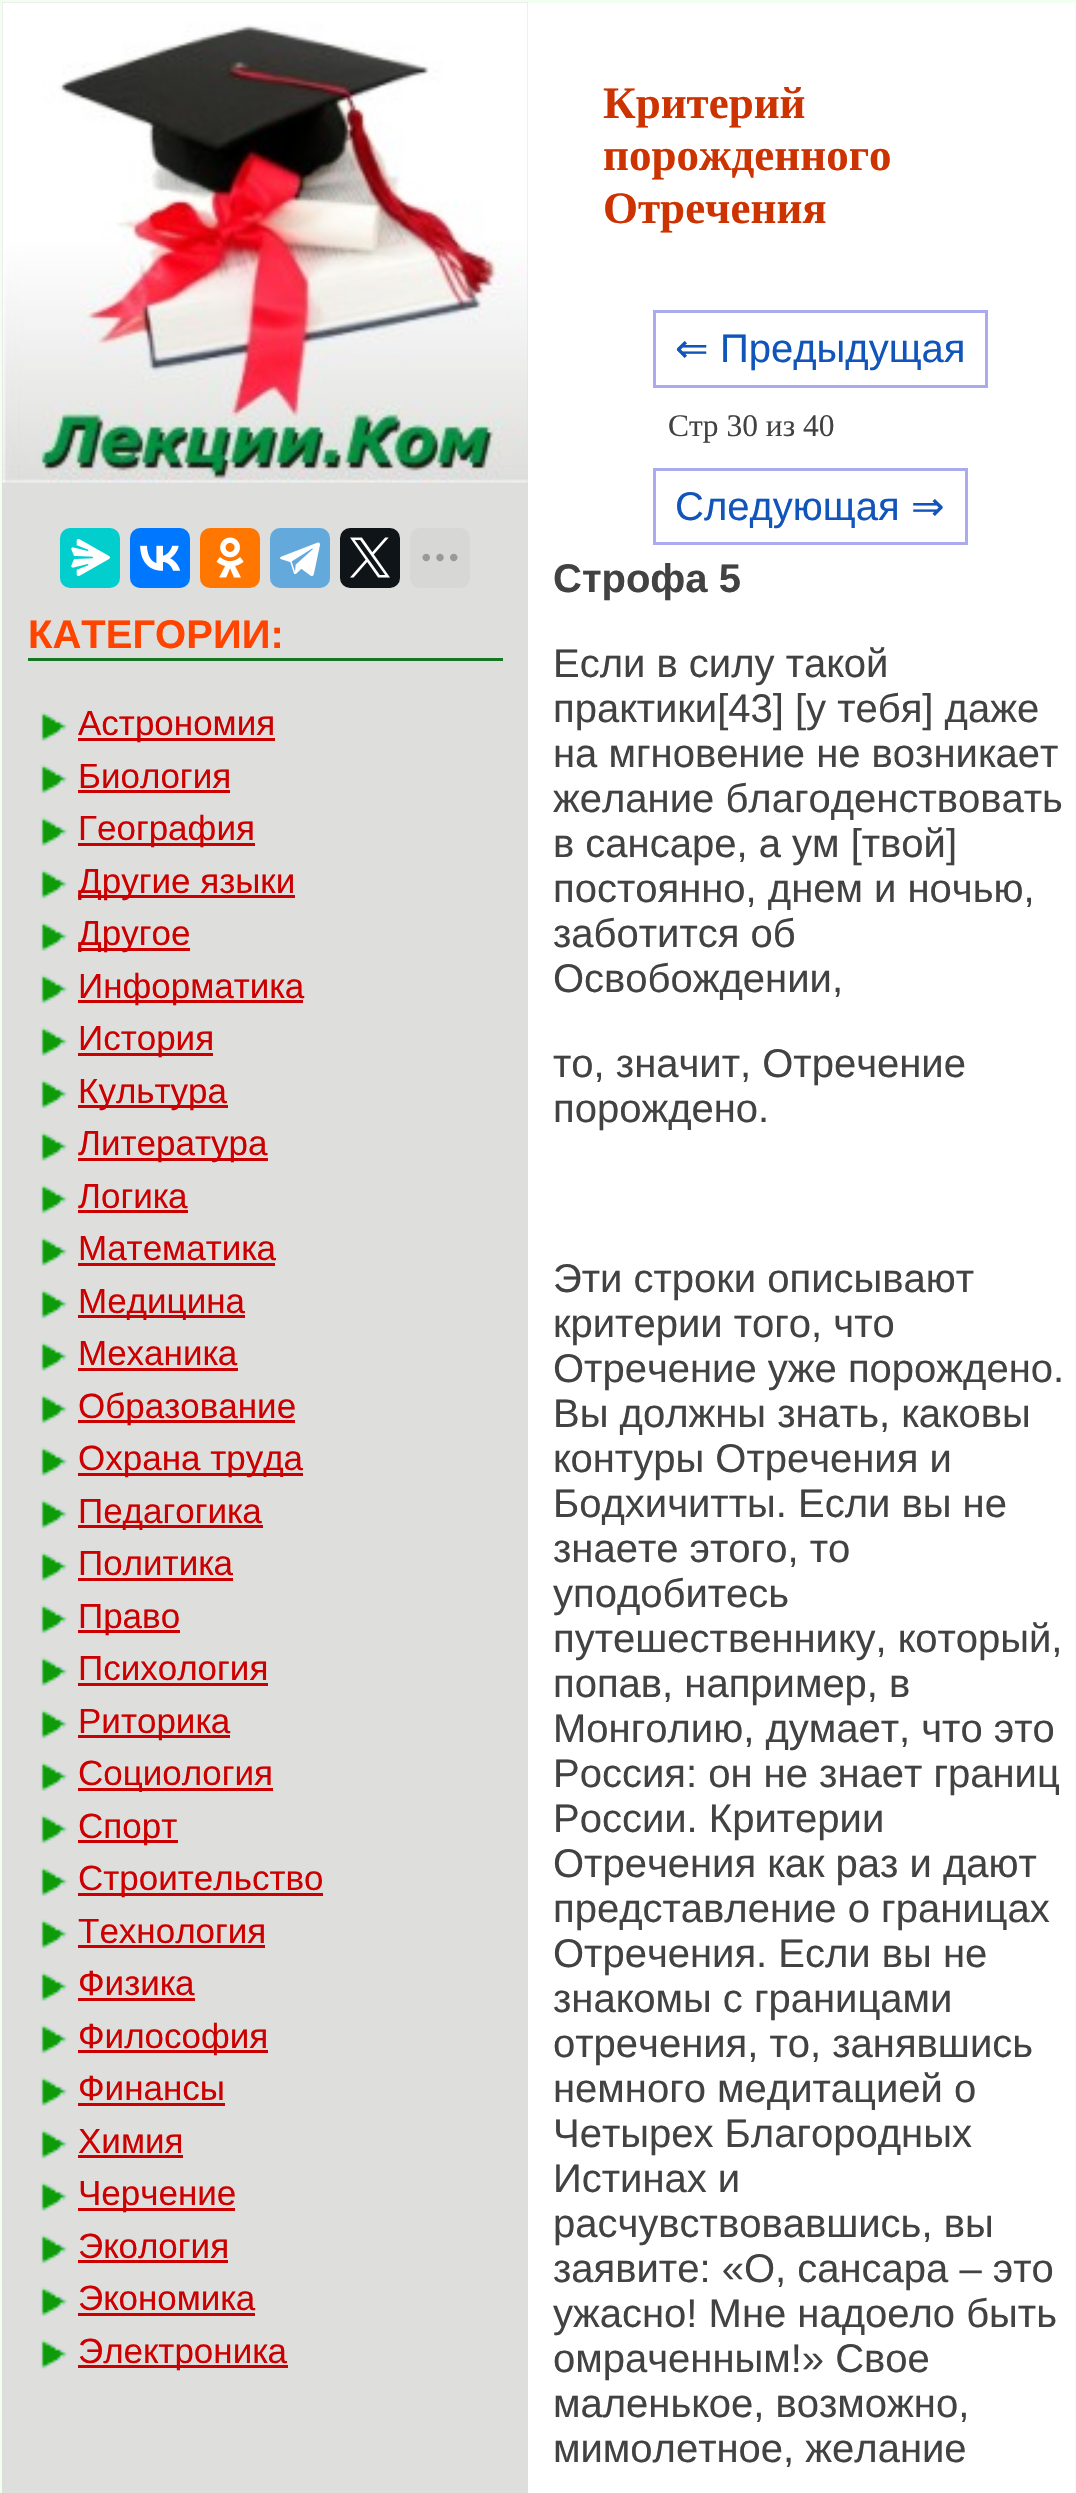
void draw(SkCanvas* canvas) {
  SkPaint paint;
  paint.setAntiAlias(true);
  auto face = [&](const char* family, int weight, float size, bool italic = false) {
    SkFontStyle style(weight, SkFontStyle::kNormal_Width,
      italic ? SkFontStyle::kItalic_Slant : SkFontStyle::kUpright_Slant);
    SkFont result(fontMgr->matchFamilyStyle(family, style), size);
    result.setSubpixel(true);
    return result;
  };
  auto paste = [&](const char* path, float x, float y, float w, float h) {
    auto image = SkImages::DeferredFromEncodedData(SkData::MakeFromFileName(path));
    canvas->drawImageRect(image, SkRect::MakeXYWH(x, y, w, h), SkSamplingOptions());
  };
  canvas->clear(0xfff0fff0);
  paint.setColor(0xffdededc);
  canvas->drawRect(SkRect::MakeXYWH(2, 2, 526, 2491), paint);
  paste("img/1.png", 2, 2, 526, 481);
  paint.setColor(0xff03cece);
  canvas->drawRoundRect(SkRect::MakeXYWH(60, 528, 60, 60), 10, 10, paint);
  paste("img/2.png", 71, 538, 39, 39);
  paint.setColor(0xff0077ff);
  canvas->drawRoundRect(SkRect::MakeXYWH(130, 528, 60, 60), 10, 10, paint);
  paste("img/3.png", 140, 545, 41, 26);
  paint.setColor(0xffff7700);
  canvas->drawRoundRect(SkRect::MakeXYWH(200, 528, 60, 60), 10, 10, paint);
  paste("img/4.png", 216, 537, 28, 41);
  paint.setColor(0xff64a9dc);
  canvas->drawRoundRect(SkRect::MakeXYWH(270, 528, 60, 60), 10, 10, paint);
  paste("img/5.png", 280, 542, 40, 34);
  paint.setColor(0xff0f1419);
  canvas->drawRoundRect(SkRect::MakeXYWH(340, 528, 60, 60), 10, 10, paint);
  paste("img/6.png", 350, 537, 40, 41);
  paint.setColor(0xffd7d7d5);
  canvas->drawRoundRect(SkRect::MakeXYWH(410, 528, 60, 60), 10, 10, paint);
  paste("img/7.png", 422, 553, 36, 9);
  paint.setColor(0xff157721);
  canvas->drawRect(SkRect::MakeXYWH(28, 658, 475, 3), paint);
  paste("img/8.png", 40, 711, 28, 30);
  paint.setColor(0xffcc0000);
  canvas->drawRect(SkRect::MakeXYWH(78, 738, 197, 3), paint);
  paste("img/9.png", 40, 764, 28, 30);
  canvas->drawRect(SkRect::MakeXYWH(78, 790, 152, 3), paint);
  paste("img/8.png", 40, 816, 28, 30);
  canvas->drawRect(SkRect::MakeXYWH(78, 843, 177, 3), paint);
  paste("img/9.png", 40, 869, 28, 30);
  canvas->drawRect(SkRect::MakeXYWH(78, 895, 217, 3), paint);
  paste("img/8.png", 40, 921, 28, 30);
  canvas->drawRect(SkRect::MakeXYWH(78, 948, 112, 3), paint);
  paste("img/9.png", 40, 974, 28, 30);
  canvas->drawRect(SkRect::MakeXYWH(78, 1000, 225, 3), paint);
  paste("img/8.png", 40, 1026, 28, 30);
  canvas->drawRect(SkRect::MakeXYWH(78, 1053, 135, 3), paint);
  paste("img/9.png", 40, 1079, 28, 30);
  canvas->drawRect(SkRect::MakeXYWH(78, 1105, 150, 3), paint);
  paste("img/8.png", 40, 1131, 28, 30);
  canvas->drawRect(SkRect::MakeXYWH(78, 1158, 190, 3), paint);
  paste("img/10.png", 40, 1184, 28, 30);
  canvas->drawRect(SkRect::MakeXYWH(78, 1210, 110, 3), paint);
  paste("img/8.png", 40, 1236, 28, 30);
  canvas->drawRect(SkRect::MakeXYWH(78, 1263, 197, 3), paint);
  paste("img/9.png", 40, 1289, 28, 30);
  canvas->drawRect(SkRect::MakeXYWH(78, 1315, 167, 3), paint);
  paste("img/8.png", 40, 1341, 28, 30);
  canvas->drawRect(SkRect::MakeXYWH(78, 1368, 160, 3), paint);
  paste("img/9.png", 40, 1394, 28, 30);
  canvas->drawRect(SkRect::MakeXYWH(78, 1420, 217, 3), paint);
  paste("img/8.png", 40, 1446, 28, 30);
  canvas->drawRect(SkRect::MakeXYWH(78, 1473, 225, 3), paint);
  paste("img/9.png", 40, 1499, 28, 30);
  canvas->drawRect(SkRect::MakeXYWH(78, 1525, 185, 3), paint);
  paste("img/8.png", 40, 1551, 28, 30);
  canvas->drawRect(SkRect::MakeXYWH(78, 1578, 155, 3), paint);
  paste("img/9.png", 40, 1604, 28, 30);
  canvas->drawRect(SkRect::MakeXYWH(78, 1630, 102, 3), paint);
  paste("img/8.png", 40, 1656, 28, 30);
  canvas->drawRect(SkRect::MakeXYWH(78, 1683, 190, 3), paint);
  paste("img/9.png", 40, 1709, 28, 30);
  canvas->drawRect(SkRect::MakeXYWH(78, 1735, 152, 3), paint);
  paste("img/8.png", 40, 1761, 28, 30);
  canvas->drawRect(SkRect::MakeXYWH(78, 1788, 195, 3), paint);
  paste("img/9.png", 40, 1814, 28, 30);
  canvas->drawRect(SkRect::MakeXYWH(78, 1840, 100, 3), paint);
  paste("img/11.png", 40, 1866, 28, 30);
  canvas->drawRect(SkRect::MakeXYWH(78, 1893, 245, 3), paint);
  paste("img/9.png", 40, 1919, 28, 30);
  canvas->drawRect(SkRect::MakeXYWH(78, 1945, 187, 3), paint);
  paste("img/8.png", 40, 1971, 28, 30);
  canvas->drawRect(SkRect::MakeXYWH(78, 1998, 117, 3), paint);
  paste("img/9.png", 40, 2024, 28, 30);
  canvas->drawRect(SkRect::MakeXYWH(78, 2050, 190, 3), paint);
  paste("img/8.png", 40, 2076, 28, 30);
  canvas->drawRect(SkRect::MakeXYWH(78, 2103, 147, 3), paint);
  paste("img/9.png", 40, 2129, 28, 30);
  canvas->drawRect(SkRect::MakeXYWH(78, 2155, 105, 3), paint);
  paste("img/8.png", 40, 2181, 28, 30);
  canvas->drawRect(SkRect::MakeXYWH(78, 2208, 157, 3), paint);
  paste("img/9.png", 40, 2234, 28, 30);
  canvas->drawRect(SkRect::MakeXYWH(78, 2260, 150, 3), paint);
  paste("img/8.png", 40, 2286, 28, 30);
  canvas->drawRect(SkRect::MakeXYWH(78, 2313, 177, 3), paint);
  paste("img/9.png", 40, 2339, 28, 30);
  canvas->drawRect(SkRect::MakeXYWH(78, 2365, 210, 3), paint);
  paint.setColor(0xffffffff);
  canvas->drawRect(SkRect::MakeXYWH(528, 3, 547, 2490), paint);
  paint.setStroke(true);
  paint.setStrokeWidth(3);
  paint.setColor(0xffaaaaee);
  canvas->drawRect(SkRect::MakeXYWH(654.5f, 311.5f, 332, 75), paint);
  canvas->drawRect(SkRect::MakeXYWH(654.5f, 469.5f, 312, 74), paint);
  auto f0 = face("Liberation Sans", 700, 40);
  paint.setStroke(false);
  paint.setColor(0xffff4400);
  canvas->drawString("КАТЕГОРИИ:", 28, 648, f0, paint);
  auto f1 = face("Liberation Sans", 400, 35);
  paint.setColor(0xffcc0000);
  {
    const struct { const char* s; float x, y; } items[] = {
      {"Астрономия", 78, 735},
      {"Биология", 78, 788},
      {"География", 78, 840},
      {"Другие языки", 78, 893},
      {"Другое", 78, 945},
      {"Информатика", 78, 998},
      {"История", 78, 1050},
      {"Культура", 78, 1103},
      {"Литература", 78, 1155},
      {"Логика", 78, 1208},
      {"Математика", 78, 1260},
      {"Медицина", 78, 1313},
      {"Механика", 78, 1365},
      {"Образование", 78, 1418},
      {"Охрана труда", 78, 1470},
      {"Педагогика", 78, 1523},
      {"Политика", 78, 1575},
      {"Право", 78, 1628},
      {"Психология", 78, 1680},
      {"Риторика", 78, 1733},
      {"Социология", 78, 1785},
      {"Спорт", 78, 1838},
      {"Строительство", 78, 1890},
      {"Технология", 78, 1943},
      {"Физика", 78, 1995},
      {"Философия", 78, 2048},
      {"Финансы", 78, 2100},
      {"Химия", 78, 2153},
      {"Черчение", 78, 2205},
      {"Экология", 78, 2258},
      {"Экономика", 78, 2310},
      {"Электроника", 78, 2363},
    };
    for (auto [s, x, y] : items) {
      canvas->drawString(s, x, y, f1, paint);
    }
  }
  auto f2 = face("Liberation Serif", 700, 45);
  paint.setColor(0xffcc3300);
  {
    const struct { const char* s; float x, y; } items[] = {
      {"Критерий", 603, 118},
      {"порожденного", 603, 170},
      {"Отречения", 603, 223},
    };
    for (auto [s, x, y] : items) {
      canvas->drawString(s, x, y, f2, paint);
    }
  }
  auto f3 = face("DejaVu Sans", 400, 40);
  paint.setColor(0xff1155bb);
  canvas->drawString("⇐", 675, 362, f3, paint);
  auto f4 = face("Liberation Sans", 400, 40);
  canvas->drawString("Предыдущая", 720, 362, f4, paint);
  auto f5 = face("Liberation Serif", 400, 31.5f);
  paint.setColor(0xff424242);
  canvas->drawString("Стр 30 из 40", 668, 436, f5, paint);
  paint.setColor(0xff1155bb);
  canvas->drawString("Следующая", 675, 520, f4, paint);
  canvas->drawString("⇒", 911, 520, f3, paint);
  paint.setColor(0xff424242);
  canvas->drawString("Строфа 5", 553, 592, f0, paint);
  {
    const struct { const char* s; float x, y; } items[] = {
      {"Если в силу такой", 553, 677},
      {"практики[43] [у тебя] даже", 553, 722},
      {"на мгновение не возникает", 553, 767},
      {"желание благоденствовать", 553, 812},
      {"в сансаре, а ум [твой]", 553, 857},
      {"постоянно, днем и ночью,", 553, 902},
      {"заботится об", 553, 947},
      {"Освобождении,", 553, 992},
      {"то, значит, Отречение", 553, 1077},
      {"порождено.", 553, 1122},
      {"Эти строки описывают", 553, 1292},
      {"критерии того, что", 553, 1337},
      {"Отречение уже порождено.", 553, 1382},
      {"Вы должны знать, каковы", 553, 1427},
      {"контуры Отречения и", 553, 1472},
      {"Бодхичитты. Если вы не", 553, 1517},
      {"знаете этого, то", 553, 1562},
      {"уподобитесь", 553, 1607},
      {"путешественнику, который,", 553, 1652},
      {"попав, например, в", 553, 1697},
      {"Монголию, думает, что это", 553, 1742},
      {"Россия: он не знает границ", 553, 1787},
      {"России. Критерии", 553, 1832},
      {"Отречения как раз и дают", 553, 1877},
      {"представление о границах", 553, 1922},
      {"Отречения. Если вы не", 553, 1967},
      {"знакомы с границами", 553, 2012},
      {"отречения, то, занявшись", 553, 2057},
      {"немного медитацией о", 553, 2102},
      {"Четырех Благородных", 553, 2147},
      {"Истинах и", 553, 2192},
      {"расчувствовавшись, вы", 553, 2237},
      {"заявите: «О, сансара – это", 553, 2282},
      {"ужасно! Мне надоело быть", 553, 2327},
      {"омраченным!» Свое", 553, 2372},
      {"маленькое, возможно,", 553, 2417},
      {"мимолетное, желание", 553, 2462},
    };
    for (auto [s, x, y] : items) {
      canvas->drawString(s, x, y, f4, paint);
    }
  }
}
